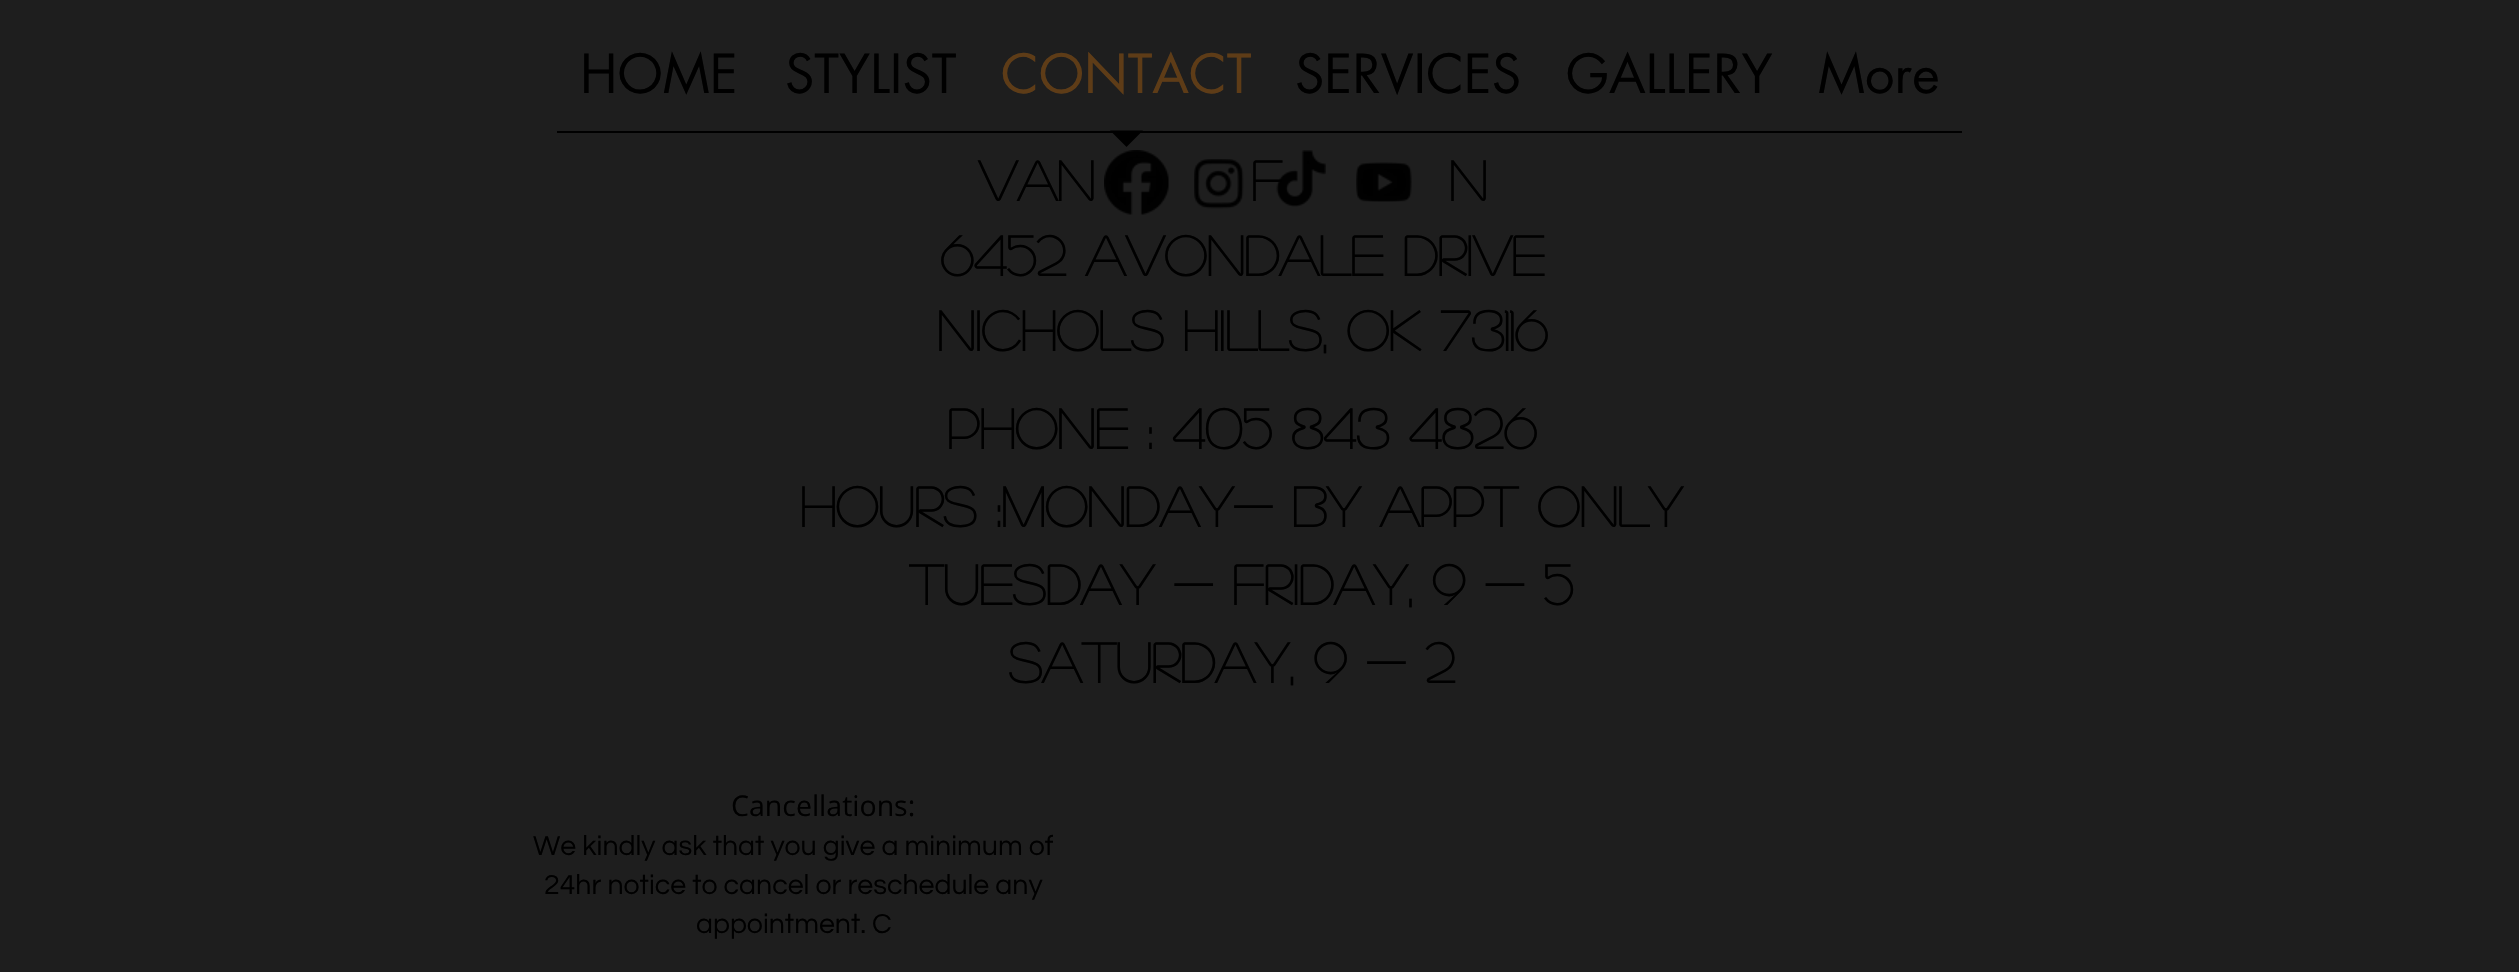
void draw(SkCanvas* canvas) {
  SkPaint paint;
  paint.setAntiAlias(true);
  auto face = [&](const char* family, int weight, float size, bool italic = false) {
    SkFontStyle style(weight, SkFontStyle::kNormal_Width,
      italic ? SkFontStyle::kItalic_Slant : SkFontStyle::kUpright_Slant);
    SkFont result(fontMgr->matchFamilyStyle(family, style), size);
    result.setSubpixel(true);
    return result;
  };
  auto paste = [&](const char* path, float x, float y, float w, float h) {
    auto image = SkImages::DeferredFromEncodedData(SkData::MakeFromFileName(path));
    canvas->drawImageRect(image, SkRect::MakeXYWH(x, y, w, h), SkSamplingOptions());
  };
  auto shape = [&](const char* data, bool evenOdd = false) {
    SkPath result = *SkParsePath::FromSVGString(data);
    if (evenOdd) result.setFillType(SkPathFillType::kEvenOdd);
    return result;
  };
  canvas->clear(0xff1e1e1e);
  paint.setColor(0xff000000);
  canvas->drawRect(SkRect::MakeXYWH(557, 131, 1405, 2), paint);
  canvas->drawPath(shape("M1110 130.5H1143L1126.5 147Z"), paint);
  paste("img/1.png", 1104, 150, 65, 65);
  paste("img/2.png", 1194, 159, 50, 50);
  paste("img/4.png", 1356, 162, 56, 40);
  auto f0 = face("futura", 400, 52.5f);
  canvas->drawString("HOME", 580, 93, f0, paint);
  canvas->drawString("STYLIST", 785, 93, f0, paint);
  paint.setColor(0xff5e3c17);
  canvas->drawString("CONTACT", 1001, 93, f0, paint);
  paint.setColor(0xff000000);
  {
    const struct { const char* s; float x, y; } items[] = {
      {"SERVICES", 1295, 93},
      {"GALLERY", 1566, 93},
      {"More", 1818, 93},
    };
    for (auto [s, x, y] : items) {
      canvas->drawString(s, x, y, f0, paint);
    }
  }
  auto f1 = face("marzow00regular", 700, 55.5f);
  canvas->drawString("Van", 978, 201, f1, paint);
  canvas->drawString("f", 1251, 201, f1, paint);
  paste("img/3.png", 1276, 150, 50, 57);
  {
    const struct { const char* s; float x, y; } items[] = {
      {"n", 1449, 201},
      {"6452 Avondale Drive", 940, 276},
      {"Nichols Hills, OK 73116", 937, 351},
      {"Phone : 405 843 4826", 947, 449},
      {"Hours :MOnday- By Appt only", 800, 527},
      {"Tuesday - friday, 9 - 5", 909, 605},
      {"SAturday, 9 - 2", 1008, 683},
    };
    for (auto [s, x, y] : items) {
      canvas->drawString(s, x, y, f1, paint);
    }
  }
  auto f2 = face("Open Sans", 400, 28.5f);
  canvas->drawString("Cancellations:", 731, 816, f2, paint);
  auto f3 = face("Questrial", 400, 28.5f);
  {
    const struct { const char* s; float x, y; } items[] = {
      {"We kindly ask that you give a minimum of", 533, 855},
      {"24hr notice to cancel or reschedule any", 544, 894},
      {"appointment. C", 696, 933},
    };
    for (auto [s, x, y] : items) {
      canvas->drawString(s, x, y, f3, paint);
    }
  }
}
